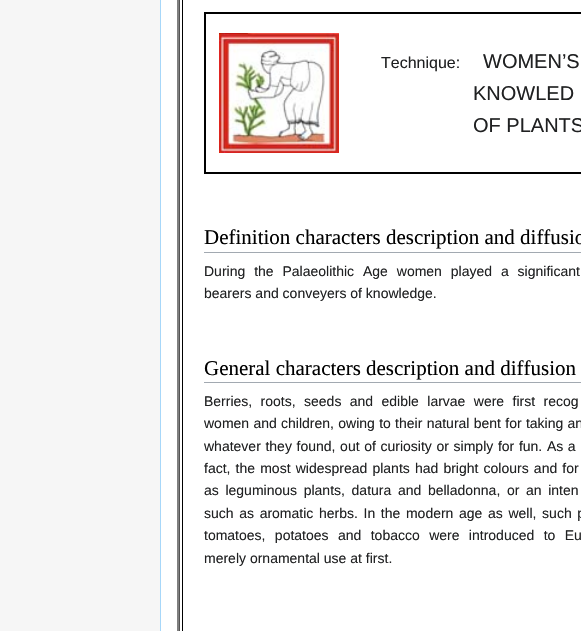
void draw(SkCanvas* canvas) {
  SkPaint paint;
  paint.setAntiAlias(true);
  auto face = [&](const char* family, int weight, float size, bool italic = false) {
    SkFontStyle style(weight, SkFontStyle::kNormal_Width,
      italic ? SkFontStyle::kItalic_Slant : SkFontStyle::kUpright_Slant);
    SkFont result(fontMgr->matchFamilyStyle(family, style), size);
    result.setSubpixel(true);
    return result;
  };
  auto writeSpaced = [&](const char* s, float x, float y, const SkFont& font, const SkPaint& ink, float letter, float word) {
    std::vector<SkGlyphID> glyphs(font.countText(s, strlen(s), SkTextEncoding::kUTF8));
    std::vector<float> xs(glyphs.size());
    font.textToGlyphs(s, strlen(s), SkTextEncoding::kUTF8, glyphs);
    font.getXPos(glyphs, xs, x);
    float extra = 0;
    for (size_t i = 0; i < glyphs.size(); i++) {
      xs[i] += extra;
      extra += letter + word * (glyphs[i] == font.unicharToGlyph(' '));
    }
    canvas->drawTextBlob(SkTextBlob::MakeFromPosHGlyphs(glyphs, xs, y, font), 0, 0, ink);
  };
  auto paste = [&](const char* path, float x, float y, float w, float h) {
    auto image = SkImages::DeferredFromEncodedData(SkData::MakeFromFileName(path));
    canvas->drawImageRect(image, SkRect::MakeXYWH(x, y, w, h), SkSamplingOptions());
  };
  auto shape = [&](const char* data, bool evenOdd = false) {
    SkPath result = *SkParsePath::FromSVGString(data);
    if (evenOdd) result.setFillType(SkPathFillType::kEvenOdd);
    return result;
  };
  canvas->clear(0xfff6f6f6);
  paint.setColor(0xffffffff);
  canvas->drawRect(SkRect::MakeXYWH(161, 0, 16, 631), paint);
  paint.setColor(0xffa7d7f9);
  canvas->drawRect(SkRect::MakeXYWH(160, 0, 1, 631), paint);
  paint.setColor(0xff808080);
  canvas->drawPath(shape("M177 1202V-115L179-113V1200Z"), paint);
  paint.setColor(0xff555555);
  canvas->drawRect(SkRect::MakeXYWH(179, 0, 1, 631), paint);
  paint.setColor(0xffffffff);
  canvas->drawRect(SkRect::MakeXYWH(180, 0, 401, 631), paint);
  paint.setStroke(true);
  paint.setStrokeWidth(1);
  paint.setColor(0xff000000);
  canvas->drawRect(SkRect::MakeXYWH(182.5f, -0.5f, 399, 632), paint);
  paint.setStrokeWidth(2);
  canvas->drawRect(SkRect::MakeXYWH(205, 13, 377, 160), paint);
  paste("img/1.png", 219, 33, 120, 120);
  paint.setStroke(false);
  paint.setColor(0xffa2a9b1);
  canvas->drawRect(SkRect::MakeXYWH(204, 252, 377, 1), paint);
  canvas->drawRect(SkRect::MakeXYWH(204, 382, 377, 1), paint);
  auto f0 = face("Liberation Sans", 400, 16);
  paint.setColor(0xff202122);
  canvas->drawString("Technique:", 381, 68, f0, paint);
  auto f1 = face("Liberation Sans", 400, 20);
  {
    const struct { const char* s; float x, y; } items[] = {
      {"WOMEN’S", 483, 68},
      {"KNOWLED", 473, 100},
      {"OF PLANTS", 473, 132},
    };
    for (auto [s, x, y] : items) {
      canvas->drawString(s, x, y, f1, paint);
    }
  }
  auto f2 = face("Liberation Serif", 400, 21);
  paint.setColor(0xff000000);
  canvas->drawString("Definition characters description and diffusio", 204, 244, f2, paint);
  auto f3 = face("Liberation Sans", 400, 14);
  paint.setColor(0xff202122);
  writeSpaced("During the Palaeolithic Age women played a significant", 204, 276, f3, paint, 0, 5);
  canvas->drawString("bearers and conveyers of knowledge.", 204, 298, f3, paint);
  paint.setColor(0xff000000);
  canvas->drawString("General characters description and diffusion", 204, 375, f2, paint);
  paint.setColor(0xff202122);
  writeSpaced("Berries, roots, seeds and edible larvae were first recog", 204, 406, f3, paint, 0, 4.5f);
  writeSpaced("women and children, owing to their natural bent for taking an", 204, 428, f3, paint, 0, 0.4f);
  writeSpaced("whatever they found, out of curiosity or simply for fun. As a", 204, 451, f3, paint, 0, 0.75f);
  writeSpaced("fact, the most widespread plants had bright colours and for", 204, 473, f3, paint, 0, 1.25f);
  writeSpaced("as leguminous plants, datura and belladonna, or an inten", 204, 495, f3, paint, 0, 2.75f);
  writeSpaced("such as aromatic herbs. In the modern age as well, such p", 204, 518, f3, paint, 0, 1.75f);
  writeSpaced("tomatoes, potatoes and tobacco were introduced to Eu", 204, 540, f3, paint, 0, 5.5f);
  canvas->drawString("merely ornamental use at first.", 204, 563, f3, paint);
}
